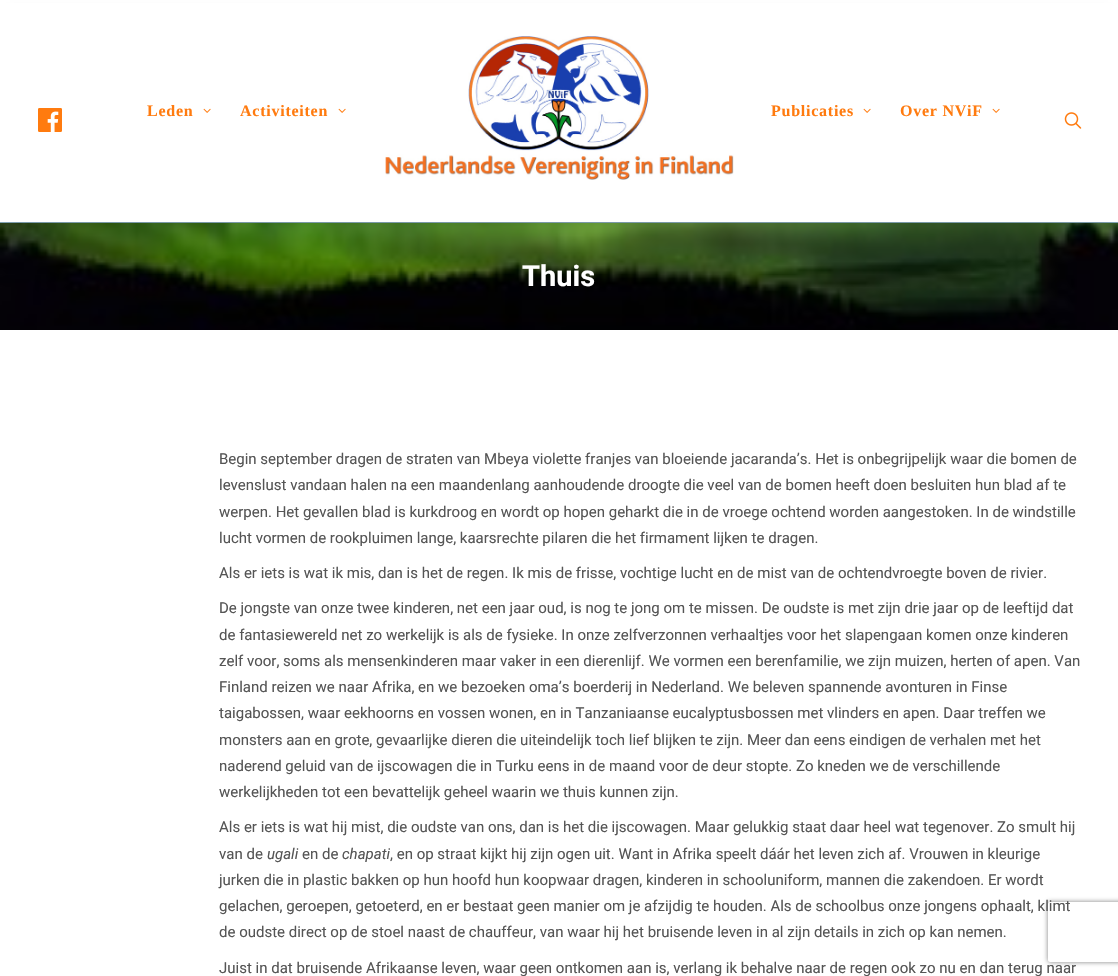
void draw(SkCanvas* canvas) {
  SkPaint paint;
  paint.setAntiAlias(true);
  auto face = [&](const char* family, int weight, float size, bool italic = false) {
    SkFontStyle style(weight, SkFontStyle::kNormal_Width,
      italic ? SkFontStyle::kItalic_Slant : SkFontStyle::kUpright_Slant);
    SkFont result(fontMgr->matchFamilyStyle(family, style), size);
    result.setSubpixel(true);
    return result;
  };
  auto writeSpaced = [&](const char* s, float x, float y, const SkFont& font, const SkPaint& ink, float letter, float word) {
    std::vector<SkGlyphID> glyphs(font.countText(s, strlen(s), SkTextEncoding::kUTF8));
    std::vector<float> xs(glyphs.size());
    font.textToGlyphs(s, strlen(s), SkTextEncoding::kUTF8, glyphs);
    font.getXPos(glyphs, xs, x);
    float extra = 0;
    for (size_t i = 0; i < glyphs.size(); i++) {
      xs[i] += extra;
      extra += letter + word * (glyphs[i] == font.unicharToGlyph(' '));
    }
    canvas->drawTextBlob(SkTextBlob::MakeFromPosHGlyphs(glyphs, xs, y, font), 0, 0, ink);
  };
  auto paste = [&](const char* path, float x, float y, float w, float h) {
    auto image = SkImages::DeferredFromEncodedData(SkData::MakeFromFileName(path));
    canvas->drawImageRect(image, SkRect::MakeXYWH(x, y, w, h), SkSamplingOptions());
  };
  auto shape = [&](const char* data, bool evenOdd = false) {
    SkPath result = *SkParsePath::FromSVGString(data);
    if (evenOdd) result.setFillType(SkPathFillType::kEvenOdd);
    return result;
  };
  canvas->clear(0xffffffff);
  paint.setColor(0xff83a4b5);
  canvas->drawRect(SkRect::MakeXYWH(0, 222, 1118, 1), paint);
  paste("img/5.png", 0, 223, 1118, 107);
  paint.setColor(0x99000000);
  paint.setMaskFilter(SkMaskFilter::MakeBlur(kNormal_SkBlurStyle, 5));
  canvas->drawRect(SkRect::MakeXYWH(10, 14, 1098, 202), paint);
  paint.setMaskFilter(nullptr);
  paint.setColor(0xffffffff);
  canvas->drawRect(SkRect::MakeXYWH(0, 3, 1118, 219), paint);
  paste("img/1.png", 38, 108, 24, 24);
  paste("img/2.png", 203, 108, 8, 5);
  paste("img/2.png", 338, 108, 8, 5);
  paste("img/3.png", 385, 36, 349, 144);
  paste("img/2.png", 863, 108, 8, 5);
  paste("img/2.png", 992, 108, 8, 5);
  paste("img/4.png", 1064, 112, 18, 17);
  canvas->save();
  canvas->clipPath(shape("M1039 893H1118V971H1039ZM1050 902H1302C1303 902 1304 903 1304 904V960C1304 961 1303 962 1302 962H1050C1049 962 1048 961 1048 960V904C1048 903 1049 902 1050 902Z", true), true);
  paint.setColor(0xff808080);
  paint.setMaskFilter(SkMaskFilter::MakeBlur(kNormal_SkBlurStyle, 2.5f));
  canvas->drawRoundRect(SkRect::MakeXYWH(1048, 902, 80, 60), 2, 2, paint);
  paint.setMaskFilter(nullptr);
  canvas->restore();
  auto f0 = face("Liberation Serif", 700, 16);
  paint.setColor(0xffff7b0f);
  {
    const struct { const char* s; float x, y; } items[] = {
      {"Leden", 147, 116},
      {"Activiteiten", 240, 116},
      {"Publicaties", 771, 116},
      {"Over NViF", 900, 116},
    };
    for (auto [s, x, y] : items) {
      writeSpaced(s, x, y, f0, paint, 0.75f, 0);
    }
  }
  auto f1 = face("Roboto", 700, 29);
  paint.setColor(0xffffffff);
  canvas->drawString("Thuis", 522, 286, f1, paint);
  auto f2 = face("Roboto", 400, 15);
  paint.setColor(0xff555555);
  {
    const struct { const char* s; float x, y; } items[] = {
      {"Begin september dragen de straten van Mbeya violette franjes van bloeiende jacaranda’s. Het is onbegrijpelijk waar die bomen de", 219, 464},
      {"levenslust vandaan halen na een maandenlang aanhoudende droogte die veel van de bomen heeft doen besluiten hun blad af te", 219, 490},
      {"werpen. Het gevallen blad is kurkdroog en wordt op hopen geharkt die in de vroege ochtend worden aangestoken. In de windstille", 219, 517},
      {"lucht vormen de rookpluimen lange, kaarsrechte pilaren die het firmament lijken te dragen.", 219, 543},
      {"Als er iets is wat ik mis, dan is het de regen. Ik mis de frisse, vochtige lucht en de mist van de ochtendvroegte boven de rivier.", 219, 578},
      {"De jongste van onze twee kinderen, net een jaar oud, is nog te jong om te missen. De oudste is met zijn drie jaar op de leeftijd dat", 219, 613},
      {"de fantasiewereld net zo werkelijk is als de fysieke. In onze zelfverzonnen verhaaltjes voor het slapengaan komen onze kinderen", 219, 640},
      {"zelf voor, soms als mensenkinderen maar vaker in een dierenlijf. We vormen een berenfamilie, we zijn muizen, herten of apen. Van", 219, 666},
      {"Finland reizen we naar Afrika, en we bezoeken oma’s boerderij in Nederland. We beleven spannende avonturen in Finse", 219, 692},
      {"taigabossen, waar eekhoorns en vossen wonen, en in Tanzaniaanse eucalyptusbossen met vlinders en apen. Daar treffen we", 219, 718},
      {"monsters aan en grote, gevaarlijke dieren die uiteindelijk toch lief blijken te zijn. Meer dan eens eindigen de verhalen met het", 219, 745},
      {"naderend geluid van de ijscowagen die in Turku eens in de maand voor de deur stopte. Zo kneden we de verschillende", 219, 771},
      {"werkelijkheden tot een bevattelijk geheel waarin we thuis kunnen zijn.", 219, 797},
      {"Als er iets is wat hij mist, die oudste van ons, dan is het die ijscowagen. Maar gelukkig staat daar heel wat tegenover. Zo smult hij", 219, 832},
      {"van de", 219, 859},
    };
    for (auto [s, x, y] : items) {
      canvas->drawString(s, x, y, f2, paint);
    }
  }
  auto f3 = face("Roboto", 400, 15, true);
  canvas->drawString("ugali", 267, 859, f3, paint);
  canvas->drawString("en de", 302, 859, f2, paint);
  canvas->drawString("chapati", 342, 859, f3, paint);
  {
    const struct { const char* s; float x, y; } items[] = {
      {", en op straat kijkt hij zijn ogen uit. Want in Afrika speelt dáár het leven zich af. Vrouwen in kleurige", 390, 859},
      {"jurken die in plastic bakken op hun hoofd hun koopwaar dragen, kinderen in schooluniform, mannen die zakendoen. Er wordt", 219, 885},
      {"gelachen, geroepen, getoeterd, en er bestaat geen manier om je afzijdig te houden. Als de schoolbus onze jongens ophaalt, klimt", 219, 911},
      {"de oudste direct op de stoel naast de chauffeur, van waar hij het bruisende leven in al zijn details in zich op kan nemen.", 219, 937},
      {"Juist in dat bruisende Afrikaanse leven, waar geen ontkomen aan is, verlang ik behalve naar de regen ook zo nu en dan terug naar", 219, 973},
    };
    for (auto [s, x, y] : items) {
      canvas->drawString(s, x, y, f2, paint);
    }
  }
}
